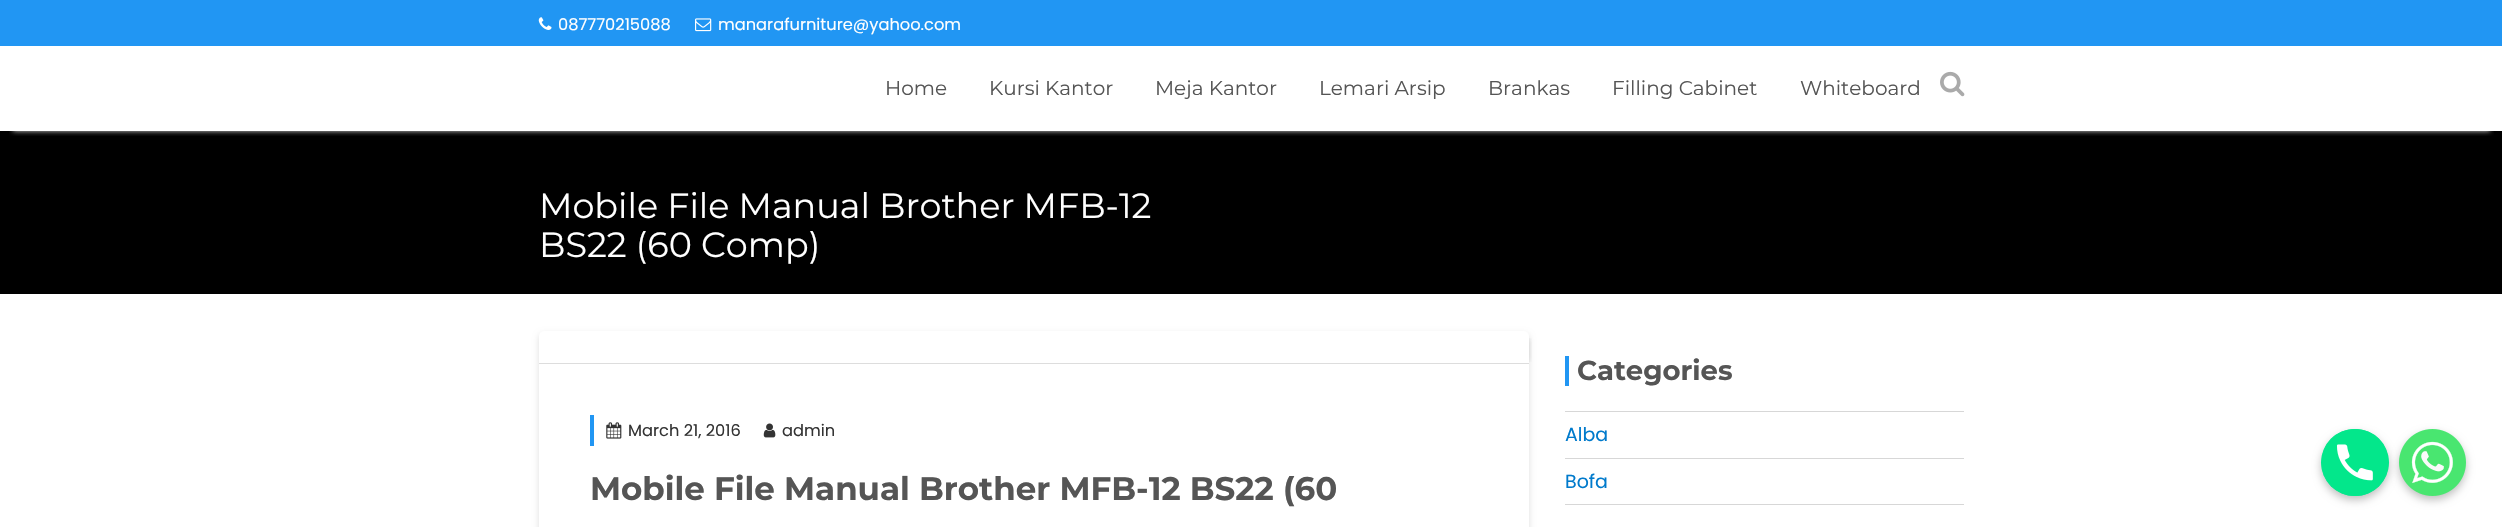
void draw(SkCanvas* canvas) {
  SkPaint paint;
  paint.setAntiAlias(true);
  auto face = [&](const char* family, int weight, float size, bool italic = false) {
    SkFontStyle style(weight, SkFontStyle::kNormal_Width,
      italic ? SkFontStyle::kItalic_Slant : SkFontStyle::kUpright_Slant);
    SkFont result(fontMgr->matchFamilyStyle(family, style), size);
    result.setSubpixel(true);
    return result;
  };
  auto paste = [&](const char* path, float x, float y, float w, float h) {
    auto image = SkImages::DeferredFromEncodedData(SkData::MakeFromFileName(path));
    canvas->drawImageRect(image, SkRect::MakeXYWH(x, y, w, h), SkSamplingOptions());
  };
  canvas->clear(0xffffffff);
  paint.setColor(0xff2196f3);
  canvas->drawRect(SkRect::MakeXYWH(0, 0, 2502, 46), paint);
  paste("img/1.png", 538, 17, 14, 13);
  paste("img/2.png", 695, 18, 17, 14);
  paint.setColor(0xff000000);
  canvas->drawRect(SkRect::MakeXYWH(0, 131, 2502, 163), paint);
  canvas->save();
  canvas->clipRect(SkRect::MakeXYWH(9, 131, 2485, 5));
  paint.setColor(0xe6eeeeee);
  paint.setMaskFilter(SkMaskFilter::MakeBlur(kNormal_SkBlurStyle, 2.5f));
  canvas->drawRect(SkRect::MakeXYWH(13, 71, 2477, 60), paint);
  paint.setMaskFilter(nullptr);
  canvas->restore();
  paste("img/3.png", 1940, 71, 25, 26);
  paint.setColor(0x21000000);
  paint.setMaskFilter(SkMaskFilter::MakeBlur(kNormal_SkBlurStyle, 3));
  canvas->drawRoundRect(SkRect::MakeXYWH(539, 334, 990, 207), 5, 5, paint);
  paint.setMaskFilter(nullptr);
  paint.setColor(0xffffffff);
  canvas->drawRoundRect(SkRect::MakeXYWH(539, 331, 990, 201), 5, 5, paint);
  canvas->save();
  canvas->clipRect(SkRect::MakeXYWH(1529, 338, 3, 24));
  paint.setColor(0x21000000);
  paint.setMaskFilter(SkMaskFilter::MakeBlur(kNormal_SkBlurStyle, 2.5f));
  canvas->drawRect(SkRect::MakeXYWH(549, 339, 980, 22), paint);
  paint.setMaskFilter(nullptr);
  canvas->restore();
  paint.setColor(0xffdddddd);
  canvas->drawRect(SkRect::MakeXYWH(539, 363, 990, 1), paint);
  paint.setColor(0xff2196f3);
  canvas->drawRect(SkRect::MakeXYWH(590, 415, 4, 31), paint);
  paste("img/4.png", 606, 422, 16, 17);
  paste("img/5.png", 763, 423, 13, 15);
  {
    const struct { float x, y, w, h; SkColor color; } items[] = {
      {1565, 356, 4, 30, 0xff2196f3},
      {1565, 411, 399, 1, 0xffd7d7d7},
      {1565, 458, 399, 1, 0xffd7d7d7},
      {1565, 504, 399, 1, 0xffd7d7d7},
    };
    for (auto [x, y, w, h, color] : items) {
      paint.setColor(color);
      canvas->drawRect(SkRect::MakeXYWH(x, y, w, h), paint);
    }
  }
  paint.setColor(0x40000000);
  paint.setMaskFilter(SkMaskFilter::MakeBlur(kNormal_SkBlurStyle, 4));
  canvas->drawRoundRect(SkRect::MakeXYWH(2321, 433, 68, 67), 33.5f, 33.5f, paint);
  paint.setMaskFilter(nullptr);
  paint.setColor(0xff03e78b);
  canvas->drawRoundRect(SkRect::MakeXYWH(2321, 429, 68, 67), 33.5f, 33.5f, paint);
  paste("img/6.png", 2321, 429, 68, 67);
  paint.setColor(0x40000000);
  paint.setMaskFilter(SkMaskFilter::MakeBlur(kNormal_SkBlurStyle, 4));
  canvas->drawRoundRect(SkRect::MakeXYWH(2399, 433, 67, 67), 33.5f, 33.5f, paint);
  paint.setMaskFilter(nullptr);
  paste("img/7.png", 2399, 429, 67, 67);
  auto f0 = face("Poppins", 400, 16.25f);
  paint.setColor(0xffffffff);
  canvas->drawString("087770215088", 558, 30, f0, paint);
  canvas->drawString("manarafurniture@yahoo.com", 718, 30, f0, paint);
  auto f1 = face("Montserrat", 400, 20);
  paint.setColor(0xff555555);
  {
    const struct { const char* s; float x, y; } items[] = {
      {"Home", 885, 95},
      {"Kursi Kantor", 989, 95},
      {"Meja Kantor", 1155, 95},
      {"Lemari Arsip", 1319, 95},
      {"Brankas", 1488, 95},
      {"Filling Cabinet", 1612, 95},
      {"Whiteboard", 1800, 95},
    };
    for (auto [s, x, y] : items) {
      canvas->drawString(s, x, y, f1, paint);
    }
  }
  auto f2 = face("Montserrat", 400, 35);
  paint.setColor(0xffffffff);
  canvas->drawString("Mobile File Manual Brother MFB-12", 539, 218, f2, paint);
  canvas->drawString("BS22 (60 Comp)", 539, 257, f2, paint);
  paint.setColor(0xff333333);
  canvas->drawString("March 21, 2016", 628, 436, f0, paint);
  canvas->drawString("admin", 782, 436, f0, paint);
  auto f3 = face("Montserrat", 700, 32.5f);
  paint.setColor(0xff555555);
  canvas->drawString("Mobile File Manual Brother MFB-12 BS22 (60", 590, 500, f3, paint);
  auto f4 = face("Montserrat", 700, 27.5f);
  canvas->drawString("Categories", 1577, 380, f4, paint);
  auto f5 = face("Poppins", 400, 19);
  paint.setColor(0xff007acc);
  canvas->drawString("Alba", 1565, 441, f5, paint);
  canvas->drawString("Bofa", 1565, 488, f5, paint);
}
